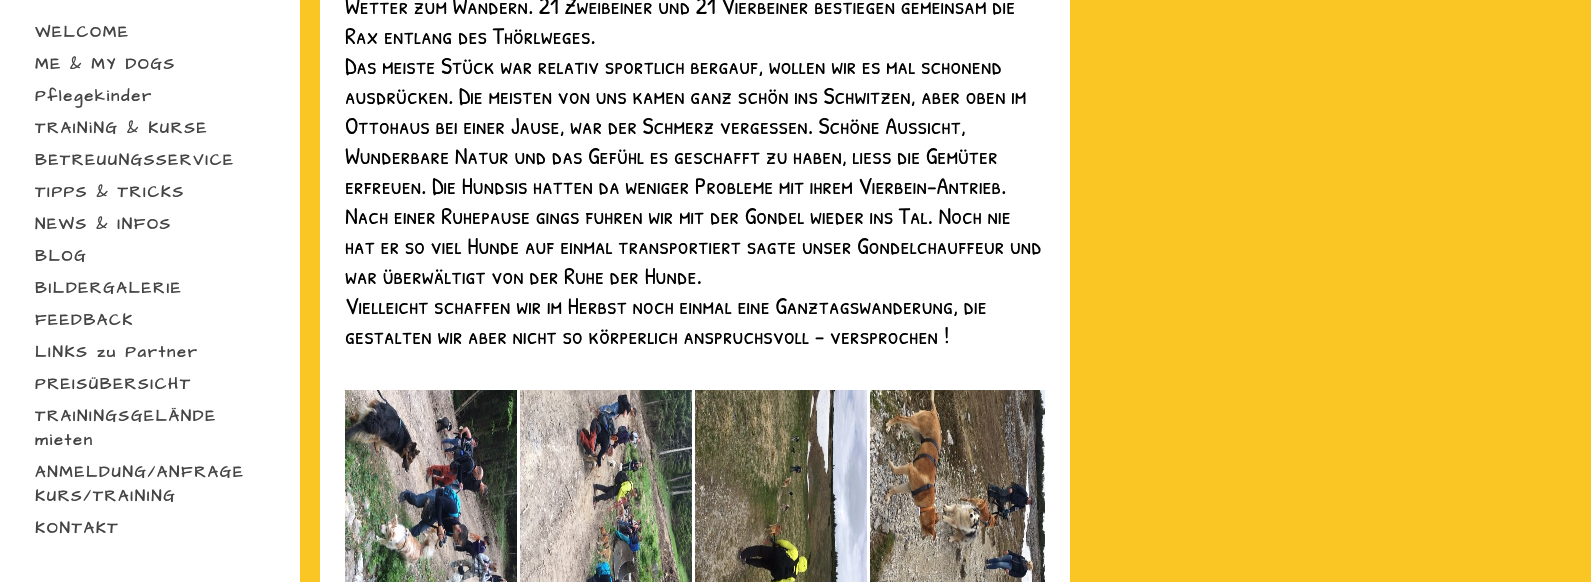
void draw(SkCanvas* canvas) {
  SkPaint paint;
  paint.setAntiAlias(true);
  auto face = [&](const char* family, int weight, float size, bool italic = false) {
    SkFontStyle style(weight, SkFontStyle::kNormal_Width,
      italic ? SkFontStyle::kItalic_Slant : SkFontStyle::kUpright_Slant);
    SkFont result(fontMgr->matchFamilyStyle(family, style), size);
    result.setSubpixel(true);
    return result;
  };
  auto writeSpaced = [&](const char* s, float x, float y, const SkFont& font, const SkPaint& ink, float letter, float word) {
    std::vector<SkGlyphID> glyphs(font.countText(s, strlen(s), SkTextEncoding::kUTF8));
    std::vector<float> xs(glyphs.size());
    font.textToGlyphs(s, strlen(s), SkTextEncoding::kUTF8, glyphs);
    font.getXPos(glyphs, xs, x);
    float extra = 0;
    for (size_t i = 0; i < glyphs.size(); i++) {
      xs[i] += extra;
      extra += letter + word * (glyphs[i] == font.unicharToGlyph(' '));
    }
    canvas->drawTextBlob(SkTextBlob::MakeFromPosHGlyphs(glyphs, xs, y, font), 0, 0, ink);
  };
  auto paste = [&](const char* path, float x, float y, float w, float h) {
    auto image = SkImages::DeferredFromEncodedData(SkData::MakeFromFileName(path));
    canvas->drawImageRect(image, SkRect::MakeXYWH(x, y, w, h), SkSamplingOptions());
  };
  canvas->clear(0xfffac623);
  paint.setColor(0xffffffff);
  canvas->drawRect(SkRect::MakeXYWH(0, 0, 300, 582), paint);
  canvas->drawRect(SkRect::MakeXYWH(320, 0, 750, 582), paint);
  paste("img/1.png", 345, 390, 172, 192);
  paste("img/2.png", 520, 390, 172, 192);
  paste("img/3.png", 695, 390, 172, 192);
  paste("img/4.png", 870, 390, 175, 192);
  auto f0 = face("Architects Daughter", 700, 16);
  paint.setColor(0xff444444);
  {
    const struct { const char* s; float x, y; } items[] = {
      {"WELCOME", 35, 37},
      {"ME & MY DOGS", 35, 69},
      {"Pflegekinder", 35, 101},
      {"TRAINiNG & KURSE", 35, 133},
      {"BETREUUNGSSERVICE", 35, 165},
      {"TIPPS & TRICKS", 35, 197},
      {"NEWS & INFOS", 35, 229},
      {"BLOG", 35, 261},
      {"BILDERGALERIE", 35, 293},
      {"FEEDBACK", 35, 325},
      {"LINKS zu Partner", 35, 357},
      {"PREISÜBERSICHT", 35, 389},
      {"TRAININGSGELÄNDE", 35, 421},
      {"mieten", 35, 445},
      {"ANMELDUNG/ANFRAGE", 35, 477},
      {"KURS/TRAINING", 35, 501},
      {"KONTAKT", 35, 533},
    };
    for (auto [s, x, y] : items) {
      writeSpaced(s, x, y, f0, paint, 2, 0);
    }
  }
  auto f1 = face("Patrick Hand SC", 400, 24);
  paint.setColor(0xff000000);
  {
    const struct { const char* s; float x, y; } items[] = {
      {"Wetter zum Wandern. 21 Zweibeiner und 21 Vierbeiner bestiegen gemeinsam die", 345, 14},
      {"Rax entlang des Thörlweges.", 345, 44},
      {"Das meiste Stück war relativ sportlich bergauf, wollen wir es mal schonend", 345, 74},
      {"ausdrücken. Die meisten von uns kamen ganz schön ins Schwitzen, aber oben im", 345, 104},
      {"Ottohaus bei einer Jause, war der Schmerz vergessen. Schöne Aussicht,", 345, 134},
      {"Wunderbare Natur und das Gefühl es geschafft zu haben, liess die Gemüter", 345, 164},
      {"erfreuen. Die Hundsis hatten da weniger Probleme mit ihrem Vierbein-Antrieb.", 345, 194},
      {"Nach einer Ruhepause gings fuhren wir mit der Gondel wieder ins Tal. Noch nie", 345, 224},
      {"hat er so viel Hunde auf einmal transportiert sagte unser Gondelchauffeur und", 345, 254},
      {"war überwältigt von der Ruhe der Hunde.", 345, 284},
      {"Vielleicht schaffen wir im Herbst noch einmal eine Ganztagswanderung, die", 345, 314},
      {"gestalten wir aber nicht so körperlich anspruchsvoll - versprochen !", 345, 344},
    };
    for (auto [s, x, y] : items) {
      canvas->drawString(s, x, y, f1, paint);
    }
  }
}
